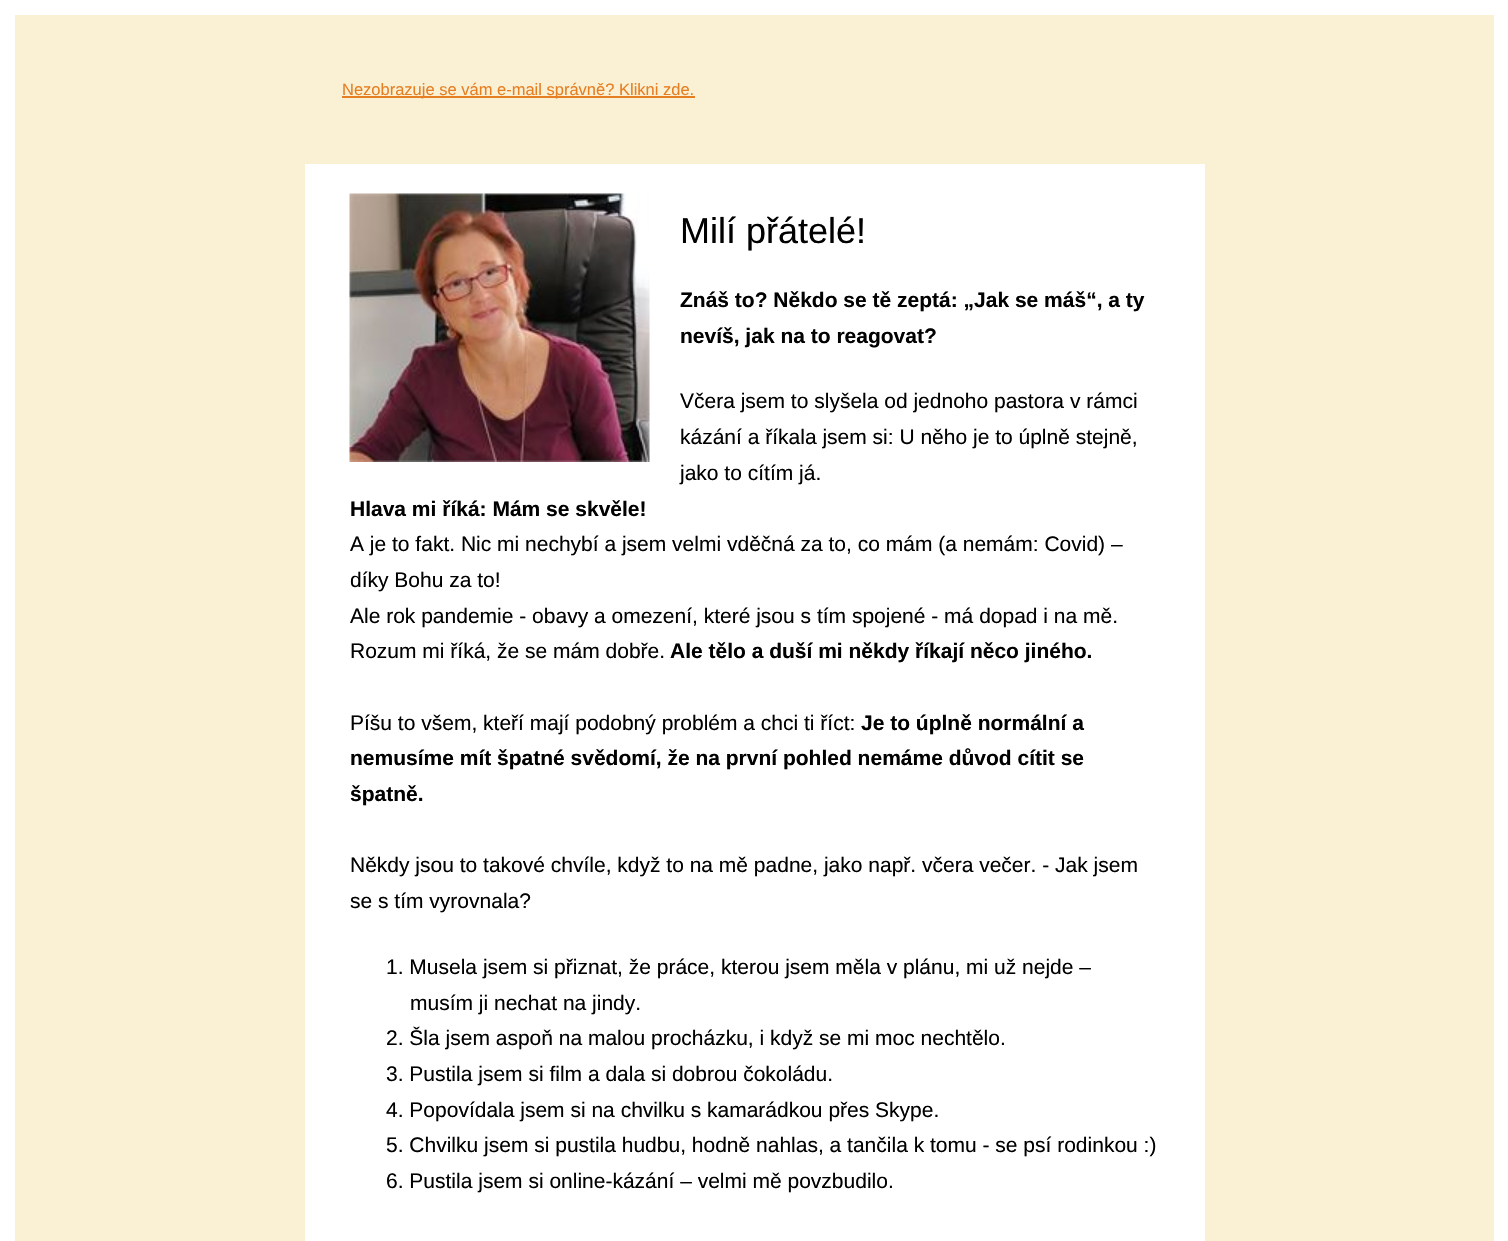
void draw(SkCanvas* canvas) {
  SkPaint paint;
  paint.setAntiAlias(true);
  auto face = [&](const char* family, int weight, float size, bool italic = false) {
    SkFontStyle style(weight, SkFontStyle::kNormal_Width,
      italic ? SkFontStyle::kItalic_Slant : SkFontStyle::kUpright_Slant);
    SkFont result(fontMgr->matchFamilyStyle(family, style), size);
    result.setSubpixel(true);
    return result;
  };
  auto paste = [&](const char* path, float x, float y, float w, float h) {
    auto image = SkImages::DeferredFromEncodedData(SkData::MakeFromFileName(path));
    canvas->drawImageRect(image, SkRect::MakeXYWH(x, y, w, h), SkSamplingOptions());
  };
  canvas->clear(0xffffffff);
  {
    const struct { float x, y, w, h; SkColor color; } items[] = {
      {15, 15, 1479, 1226, 0xfffaf1d4},
      {342, 96, 353, 2, 0xffe67e22},
      {305, 164, 900, 1077, 0xffffffff},
    };
    for (auto [x, y, w, h, color] : items) {
      paint.setColor(color);
      canvas->drawRect(SkRect::MakeXYWH(x, y, w, h), paint);
    }
  }
  paste("img/1.png", 349, 193, 301, 269);
  auto f0 = face("Liberation Sans", 400, 16.5f);
  paint.setColor(0xffe67e22);
  canvas->drawString("Nezobrazuje se vám e-mail správně? Klikni zde.", 342, 95, f0, paint);
  auto f1 = face("Liberation Sans", 400, 36);
  paint.setColor(0xff000000);
  canvas->drawString("Milí přátelé!", 680, 243, f1, paint);
  auto f2 = face("Liberation Sans", 700, 21);
  canvas->drawString("Znáš to? Někdo se tě zeptá: „Jak se máš“, a ty", 680, 307, f2, paint);
  canvas->drawString("nevíš, jak na to reagovat?", 680, 343, f2, paint);
  auto f3 = face("Liberation Sans", 400, 21);
  {
    const struct { const char* s; float x, y; } items[] = {
      {"Včera jsem to slyšela od jednoho pastora v rámci", 680, 408},
      {"kázání a říkala jsem si: U něho je to úplně stejně,", 680, 444},
      {"jako to cítím já.", 680, 480},
    };
    for (auto [s, x, y] : items) {
      canvas->drawString(s, x, y, f3, paint);
    }
  }
  canvas->drawString("Hlava mi říká: Mám se skvěle!", 350, 516, f2, paint);
  {
    const struct { const char* s; float x, y; } items[] = {
      {"A je to fakt. Nic mi nechybí a jsem velmi vděčná za to, co mám (a nemám: Covid) –", 350, 551},
      {"díky Bohu za to!", 350, 587},
      {"Ale rok pandemie - obavy a omezení, které jsou s tím spojené - má dopad i na mě.", 350, 623},
      {"Rozum mi říká, že se mám dobře.", 350, 658},
    };
    for (auto [s, x, y] : items) {
      canvas->drawString(s, x, y, f3, paint);
    }
  }
  canvas->drawString("Ale tělo a duší mi někdy říkají něco jiného.", 670, 658, f2, paint);
  canvas->drawString("Píšu to všem, kteří mají podobný problém a chci ti říct:", 350, 730, f3, paint);
  {
    const struct { const char* s; float x, y; } items[] = {
      {"Je to úplně normální a", 861, 730},
      {"nemusíme mít špatné svědomí, že na první pohled nemáme důvod cítit se", 350, 765},
      {"špatně.", 350, 801},
    };
    for (auto [s, x, y] : items) {
      canvas->drawString(s, x, y, f2, paint);
    }
  }
  {
    const struct { const char* s; float x, y; } items[] = {
      {"Někdy jsou to takové chvíle, když to na mě padne, jako např. včera večer. - Jak jsem", 350, 872},
      {"se s tím vyrovnala?", 350, 908},
      {"1. Musela jsem si přiznat, že práce, kterou jsem měla v plánu, mi už nejde –", 386, 974},
      {"musím ji nechat na jindy.", 410, 1010},
      {"2. Šla jsem aspoň na malou procházku, i když se mi moc nechtělo.", 386, 1045},
      {"3. Pustila jsem si film a dala si dobrou čokoládu.", 386, 1081},
      {"4. Popovídala jsem si na chvilku s kamarádkou přes Skype.", 386, 1117},
      {"5. Chvilku jsem si pustila hudbu, hodně nahlas, a tančila k tomu - se psí rodinkou :)", 386, 1152},
      {"6. Pustila jsem si online-kázání – velmi mě povzbudilo.", 386, 1188},
    };
    for (auto [s, x, y] : items) {
      canvas->drawString(s, x, y, f3, paint);
    }
  }
}
